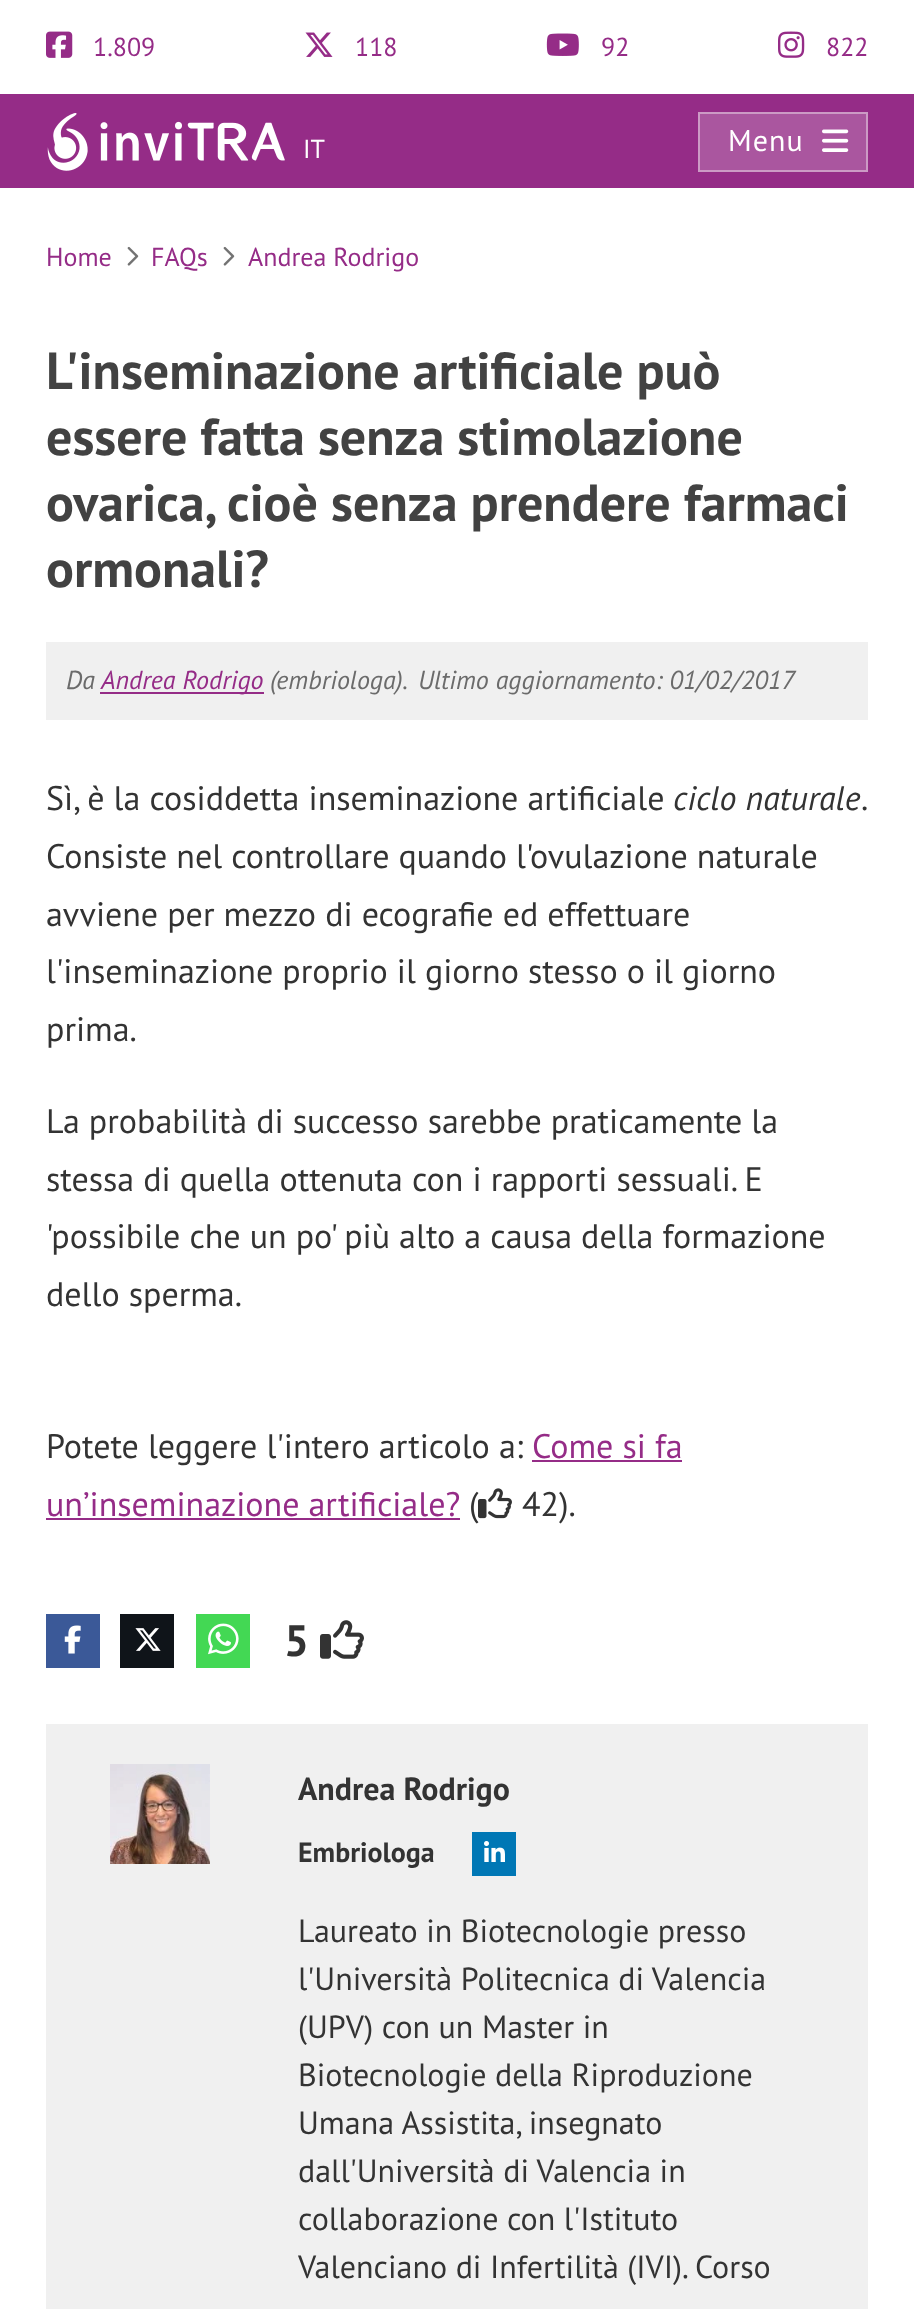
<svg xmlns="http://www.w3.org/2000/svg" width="914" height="2309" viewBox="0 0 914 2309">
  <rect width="100%" height="100%" fill="#fff"/>
  <image x="46" y="31" width="27" height="27" href="img/1.png"/>
  <image x="305" y="32" width="28" height="25" href="img/2.png"/>
  <image x="546" y="33" width="33" height="23" href="img/3.png"/>
  <image x="778" y="31" width="27" height="27" href="img/4.png"/>
  <path d="M0 94h914v94H0z" fill="#952c87"/>
  <image x="47" y="113" width="238" height="58" href="img/5.png"/>
  <path d="M700 114h166v56H700z" fill="#aa569f"/>
  <image x="822" y="129" width="27" height="23" href="img/6.png"/>
  <path d="M699 113h168v58H699z" fill="none" stroke="#cc9ac5" stroke-width="2"/>
  <image x="127" y="246" width="12" height="20" href="img/7.png"/>
  <image x="223" y="246" width="12" height="20" href="img/7.png"/>
  <path d="M46 642h822v78H46z" fill="#f0f0f0"/>
  <path d="M100 692h164v2H100z" fill="#952c87"/>
  <path d="M532 1460h150v2H532z" fill="#952c87"/>
  <path d="M46 1518h414v2H46z" fill="#952c87"/>
  <path d="M46 1614h54v54H46z" fill="#3b5998"/>
  <image x="64" y="1625" width="17" height="29" href="img/9.png"/>
  <path d="M120 1614h54v54H120z" fill="#0f1419"/>
  <image x="135" y="1628" width="26" height="23" href="img/10.png"/>
  <path d="M196 1614h54v54H196z" fill="#43d854"/>
  <image x="208" y="1623" width="31" height="32" href="img/11.png"/>
  <image x="320" y="1620" width="44" height="39" href="img/12.png"/>
  <path d="M46 1724h822v585H46z" fill="#f0f0f0"/>
  <image x="110" y="1764" width="100" height="100" href="img/13.png"/>
  <path d="M472 1832h44v44H472z" fill="#0077b5"/>
  <image x="484" y="1841" width="21" height="21" href="img/14.png"/>
  <g font-family="PT Sans" font-size="26" fill="#952c87">
    <text x="93" y="56">1.809</text>
    <text x="355" y="56">118</text>
    <text x="601" y="56">92</text>
    <text x="826" y="56">822</text>
  </g>
  <text x="303" y="158" font-family="PT Sans" font-size="26" fill="#fff">IT</text>
  <text x="728" y="151" font-family="PT Sans" font-size="30" letter-spacing="1" fill="#fff">Menu</text>
  <g font-family="PT Sans" font-size="26" fill="#952c87">
    <text x="46" y="266">Home</text>
    <text x="151" y="266">FAQs</text>
    <text x="248" y="266">Andrea Rodrigo</text>
  </g>
  <g font-family="PT Sans" font-size="52" font-weight="bold" fill="#424242">
    <text x="46" y="389">L'inseminazione artificiale può</text>
    <text x="46" y="455">essere fatta senza stimolazione</text>
    <text x="46" y="521">ovarica, cioè senza prendere farmaci</text>
    <text x="46" y="587">ormonali?</text>
  </g>
  <text x="66" y="689" font-family="PT Sans" font-size="26" font-style="italic" fill="#6b6b6b">Da</text>
  <text x="101" y="689" font-family="PT Sans" font-size="26" font-style="italic" fill="#952c87">Andrea Rodrigo</text>
  <g font-family="PT Sans" font-size="26" font-style="italic" fill="#6b6b6b">
    <text x="270" y="689">(embriologa).</text>
    <text x="418" y="689">Ultimo aggiornamento: 01/02/2017</text>
  </g>
  <text x="46" y="810" font-family="PT Sans" font-size="34" fill="#333">Sì, è la cosiddetta inseminazione artificiale</text>
  <text x="673" y="810" font-family="PT Sans" font-size="34" font-style="italic" fill="#333">ciclo naturale</text>
  <g font-family="PT Sans" font-size="34" fill="#333">
    <text x="861" y="810">.</text>
    <text x="46" y="868">Consiste nel controllare quando l'ovulazione naturale</text>
    <text x="46" y="926">avviene per mezzo di ecografie ed effettuare</text>
    <text x="46" y="983">l'inseminazione proprio il giorno stesso o il giorno</text>
    <text x="46" y="1041">prima.</text>
    <text x="46" y="1133">La probabilità di successo sarebbe praticamente la</text>
    <text x="46" y="1191">stessa di quella ottenuta con i rapporti sessuali. E</text>
    <text x="46" y="1248">'possibile che un po' più alto a causa della formazione</text>
    <text x="46" y="1306">dello sperma.</text>
    <text x="46" y="1458">Potete leggere l'intero articolo a:</text>
  </g>
  <g font-family="PT Sans" font-size="34" fill="#952c87">
    <text x="532" y="1458">Come si fa</text>
    <text x="46" y="1516">un’inseminazione artificiale?</text>
  </g>
  <text x="469" y="1516" font-family="PT Sans" font-size="34" fill="#333">(</text>
  <image x="478" y="1488" width="34" height="31" href="img/8.png"/>
  <text x="522" y="1516" font-family="PT Sans" font-size="34" fill="#333">42).</text>
  <text x="284" y="1656" font-family="PT Sans" font-size="44" font-weight="bold" fill="#333">5</text>
  <text x="298" y="1800" font-family="PT Sans" font-size="32" font-weight="bold" fill="#333">Andrea Rodrigo</text>
  <text x="298" y="1862" font-family="PT Sans" font-size="28" font-weight="bold" fill="#333">Embriologa</text>
  <g font-family="PT Sans" font-size="32" fill="#333">
    <text x="298" y="1942">Laureato in Biotecnologie presso</text>
    <text x="298" y="1990">l'Università Politecnica di Valencia</text>
    <text x="298" y="2038">(UPV) con un Master in</text>
    <text x="298" y="2086">Biotecnologie della Riproduzione</text>
    <text x="298" y="2134">Umana Assistita, insegnato</text>
    <text x="298" y="2182">dall'Università di Valencia in</text>
    <text x="298" y="2230">collaborazione con l'Istituto</text>
    <text x="298" y="2278">Valenciano di Infertilità (IVI). Corso</text>
  </g>
</svg>
